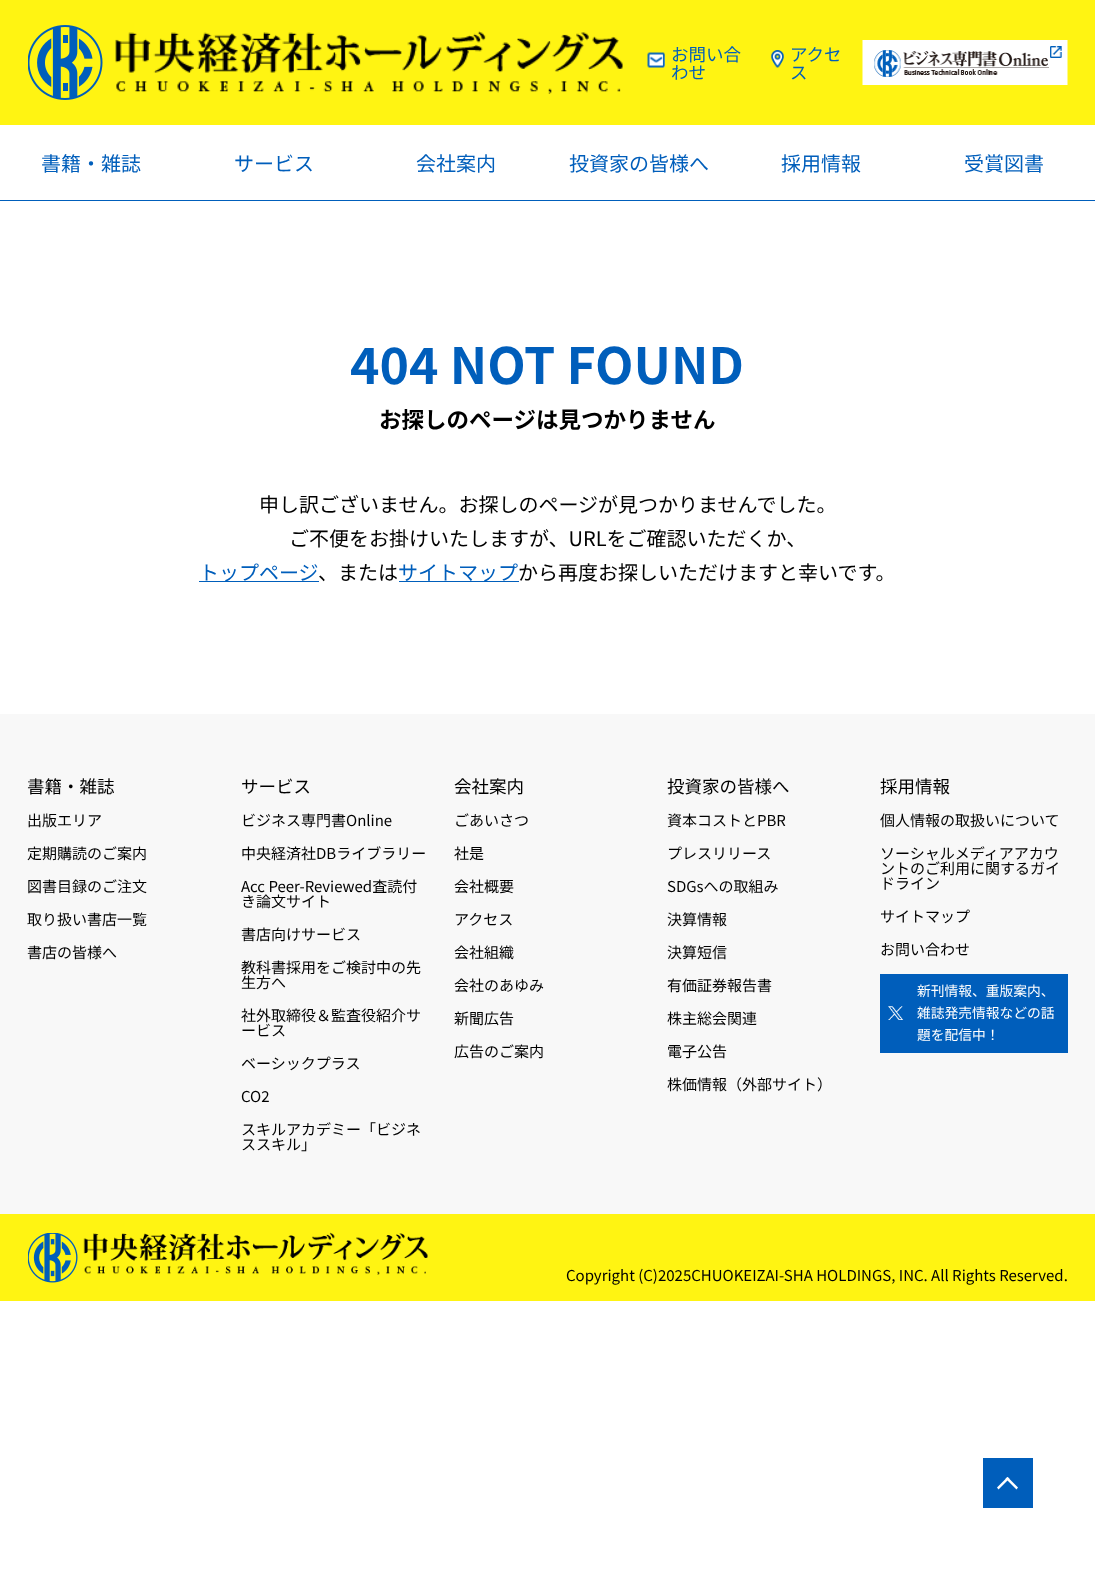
<svg xmlns="http://www.w3.org/2000/svg" width="1095" height="1570" viewBox="0 0 1095 1570">
  <rect width="100%" height="100%" fill="#fff"/>
  <path d="M0 200h1095v1H0z" fill="#005ebb"/>
  <path d="M0 0h1095v125H0z" fill="#fff412"/>
  <image x="28" y="25" width="75" height="75" href="img/1.png"/>
  <image x="115" y="31" width="508" height="63" href="img/2.png"/>
  <image x="647" y="52" width="18" height="16" href="img/3.png"/>
  <image x="771" y="50" width="13" height="18" href="img/4.png"/>
  <image x="862" y="40" width="206" height="45" href="img/5.png"/>
  <path d="M199 581h120v1H199z" fill="#005ebb"/>
  <path d="M399 581h120v1H399z" fill="#005ebb"/>
  <path d="M0 714h1095v500H0z" fill="#f8f8f8"/>
  <path d="M880 974h188v79H880z" fill="#005ebb"/>
  <image x="888" y="1006" width="16" height="14" href="img/6.png"/>
  <path d="M0 1214h1095v87H0z" fill="#fff412"/>
  <image x="28" y="1233" width="50" height="50" href="img/7.png"/>
  <image x="83" y="1232" width="345" height="43" href="img/8.png"/>
  <path d="M983 1458h50v50H983z" fill="#005ebb"/>
  <path d="M997 1487.5L1007.5 1477L1009.5 1478.5L998.5 1489.5Z" fill="#fff"/>
  <path d="M1005.5 1478.5L1007.5 1477L1018 1487.5L1016.5 1489.5Z" fill="#fff"/>
  <g font-family="Noto Sans JP" font-size="17.5" fill="#005ebb">
    <text x="671" y="61">お問い合</text>
    <text x="671" y="79">わせ</text>
    <text x="790" y="61">アクセ</text>
    <text x="790" y="79">ス</text>
  </g>
  <g font-family="Noto Sans JP" font-size="20" fill="#005ebb">
    <text x="41" y="171">書籍・雑誌</text>
    <text x="234" y="171">サービス</text>
    <text x="416" y="171">会社案内</text>
    <text x="569" y="171">投資家の皆様へ</text>
    <text x="781" y="171">採用情報</text>
    <text x="964" y="171">受賞図書</text>
  </g>
  <text x="350" y="384" font-family="Noto Sans JP" font-size="50" font-weight="bold" fill="#005ebb">404 NOT FOUND</text>
  <text x="379" y="428" font-family="Noto Sans JP" font-size="22.5" font-weight="bold" fill="#000">お探しのページは見つかりません</text>
  <g font-family="Noto Sans JP" font-size="20" fill="#000">
    <text x="259" y="512">申し訳ございません。お探しのページが見つかりませんでした。</text>
    <text x="289" y="546">ご不便をお掛けいたしますが、URLをご確認いただくか、</text>
  </g>
  <text x="199" y="580" font-family="Noto Sans JP" font-size="20" fill="#005ebb">トップページ</text>
  <text x="318" y="580" font-family="Noto Sans JP" font-size="20" fill="#000">、または</text>
  <text x="398" y="580" font-family="Noto Sans JP" font-size="20" fill="#005ebb">サイトマップ</text>
  <text x="518" y="580" font-family="Noto Sans JP" font-size="20" fill="#000">から再度お探しいただけますと幸いです。</text>
  <text x="27" y="793" font-family="Noto Sans JP" font-size="17.5" fill="#000">書籍・雑誌</text>
  <g font-family="Noto Sans JP" font-size="15" fill="#000">
    <text x="27" y="826">出版エリア</text>
    <text x="27" y="859">定期購読のご案内</text>
    <text x="27" y="892">図書目録のご注文</text>
    <text x="27" y="925">取り扱い書店一覧</text>
    <text x="27" y="958">書店の皆様へ</text>
  </g>
  <text x="241" y="793" font-family="Noto Sans JP" font-size="17.5" fill="#000">サービス</text>
  <g font-family="Noto Sans JP" font-size="15" fill="#000">
    <text x="241" y="826">ビジネス専門書Online</text>
    <text x="241" y="859">中央経済社DBライブラリー</text>
    <text x="241" y="892">Acc Peer-Reviewed査読付</text>
    <text x="241" y="907">き論文サイト</text>
    <text x="241" y="940">書店向けサービス</text>
    <text x="241" y="973">教科書採用をご検討中の先</text>
    <text x="241" y="988">生方へ</text>
    <text x="241" y="1021">社外取締役＆監査役紹介サ</text>
    <text x="241" y="1036">ービス</text>
    <text x="241" y="1069">ベーシックプラス</text>
    <text x="241" y="1102">CO2</text>
    <text x="241" y="1135">スキルアカデミー「ビジネ</text>
    <text x="241" y="1150">ススキル」</text>
  </g>
  <text x="454" y="793" font-family="Noto Sans JP" font-size="17.5" fill="#000">会社案内</text>
  <g font-family="Noto Sans JP" font-size="15" fill="#000">
    <text x="454" y="826">ごあいさつ</text>
    <text x="454" y="859">社是</text>
    <text x="454" y="892">会社概要</text>
    <text x="454" y="925">アクセス</text>
    <text x="454" y="958">会社組織</text>
    <text x="454" y="991">会社のあゆみ</text>
    <text x="454" y="1024">新聞広告</text>
    <text x="454" y="1057">広告のご案内</text>
  </g>
  <text x="667" y="793" font-family="Noto Sans JP" font-size="17.5" fill="#000">投資家の皆様へ</text>
  <g font-family="Noto Sans JP" font-size="15" fill="#000">
    <text x="667" y="826">資本コストとPBR</text>
    <text x="667" y="859">プレスリリース</text>
    <text x="667" y="892">SDGsへの取組み</text>
    <text x="667" y="925">決算情報</text>
    <text x="667" y="958">決算短信</text>
    <text x="667" y="991">有価証券報告書</text>
    <text x="667" y="1024">株主総会関連</text>
    <text x="667" y="1057">電子公告</text>
    <text x="667" y="1090">株価情報（外部サイト）</text>
  </g>
  <text x="880" y="793" font-family="Noto Sans JP" font-size="17.5" fill="#000">採用情報</text>
  <g font-family="Noto Sans JP" font-size="15" fill="#000">
    <text x="880" y="826">個人情報の取扱いについて</text>
    <text x="880" y="859">ソーシャルメディアアカウ</text>
    <text x="880" y="874">ントのご利用に関するガイ</text>
    <text x="880" y="889">ドライン</text>
    <text x="880" y="922">サイトマップ</text>
    <text x="880" y="955">お問い合わせ</text>
  </g>
  <g font-family="Noto Sans JP" font-size="13.75" fill="#fff">
    <text x="917" y="996">新刊情報、重版案内、</text>
    <text x="917" y="1018">雑誌発売情報などの話</text>
    <text x="917" y="1040">題を配信中！</text>
  </g>
  <text x="566" y="1281" font-family="Noto Sans JP" font-size="15" fill="#000">Copyright (C)2025CHUOKEIZAI-SHA HOLDINGS, INC. All Rights Reserved.</text>
</svg>
